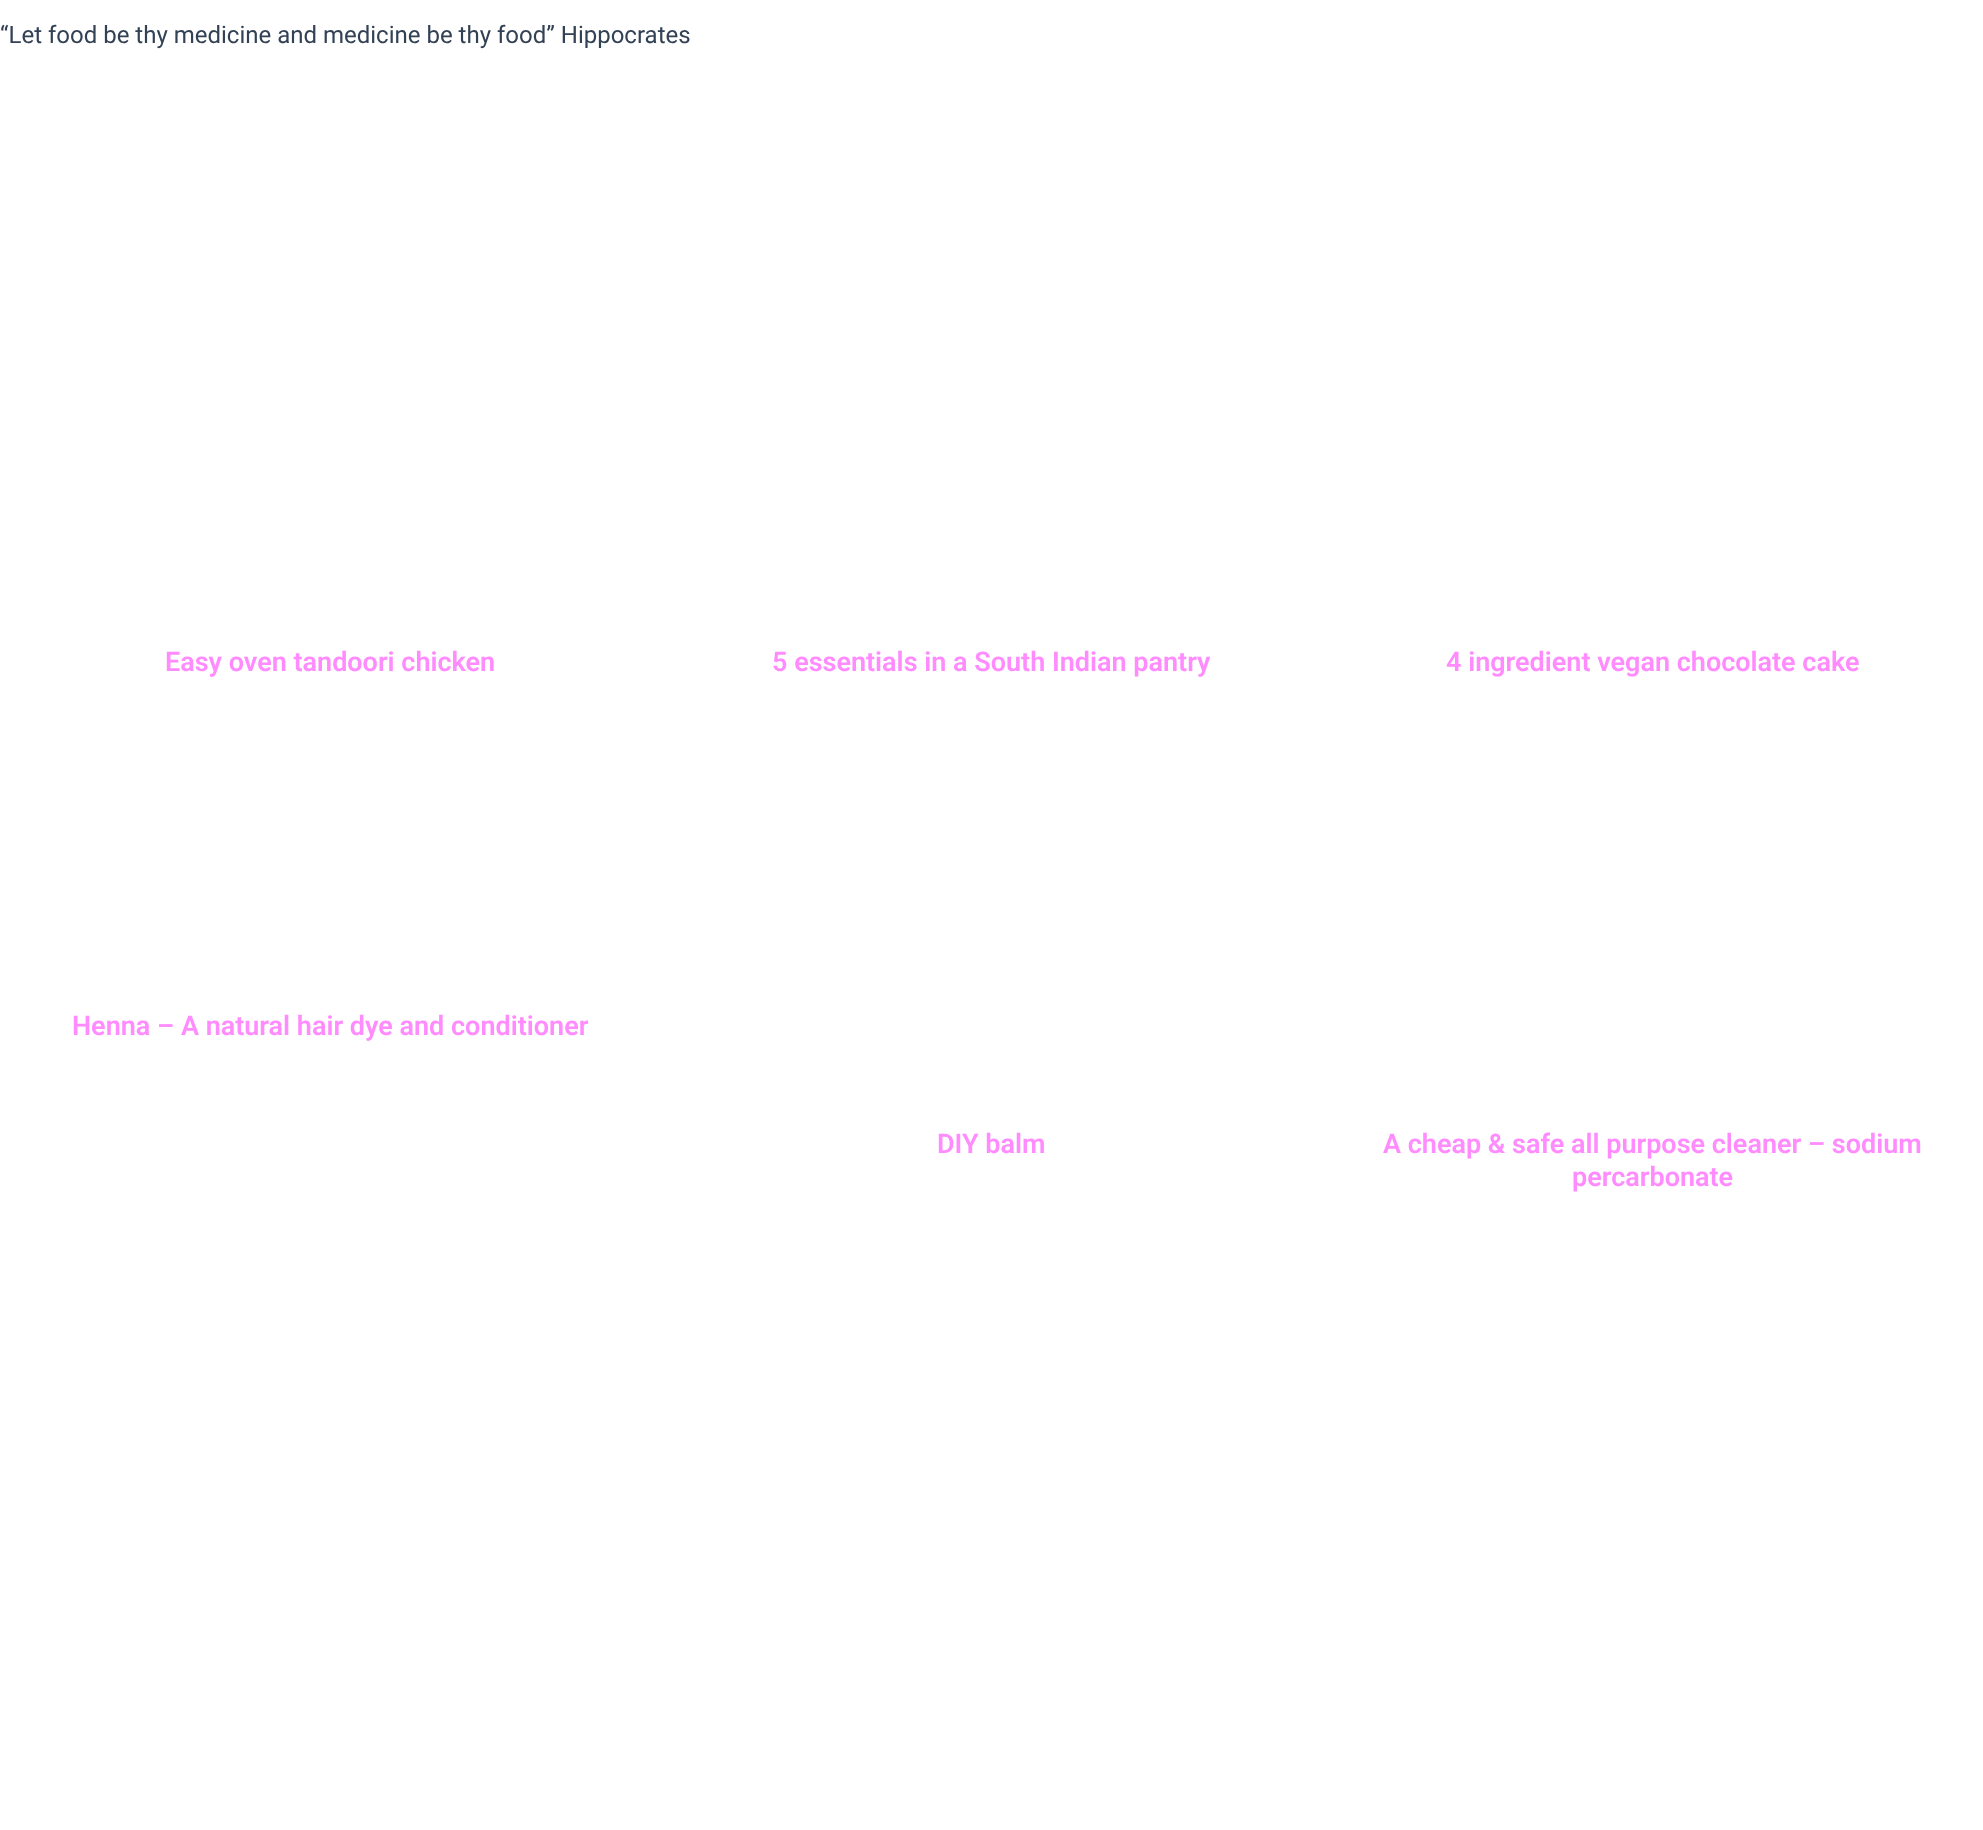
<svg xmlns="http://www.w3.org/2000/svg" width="1983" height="1830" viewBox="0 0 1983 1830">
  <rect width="100%" height="100%" fill="#fff"/>
  <text x="0" y="43" font-family="Roboto" font-size="24" fill="#334155">“Let food be thy medicine and medicine be thy food” Hippocrates</text>
  <g font-family="Roboto" font-size="27" font-weight="600" fill="#ff8bfe">
    <text x="165" y="671">Easy oven tandoori chicken</text>
    <text x="772" y="671">5 essentials in a South Indian pantry</text>
    <text x="1446" y="671">4 ingredient vegan chocolate cake</text>
    <text x="72" y="1035">Henna – A natural hair dye and conditioner</text>
    <text x="937" y="1153">DIY balm</text>
    <text x="1383" y="1153">A cheap &amp; safe all purpose cleaner – sodium</text>
    <text x="1572" y="1186">percarbonate</text>
  </g>
</svg>
